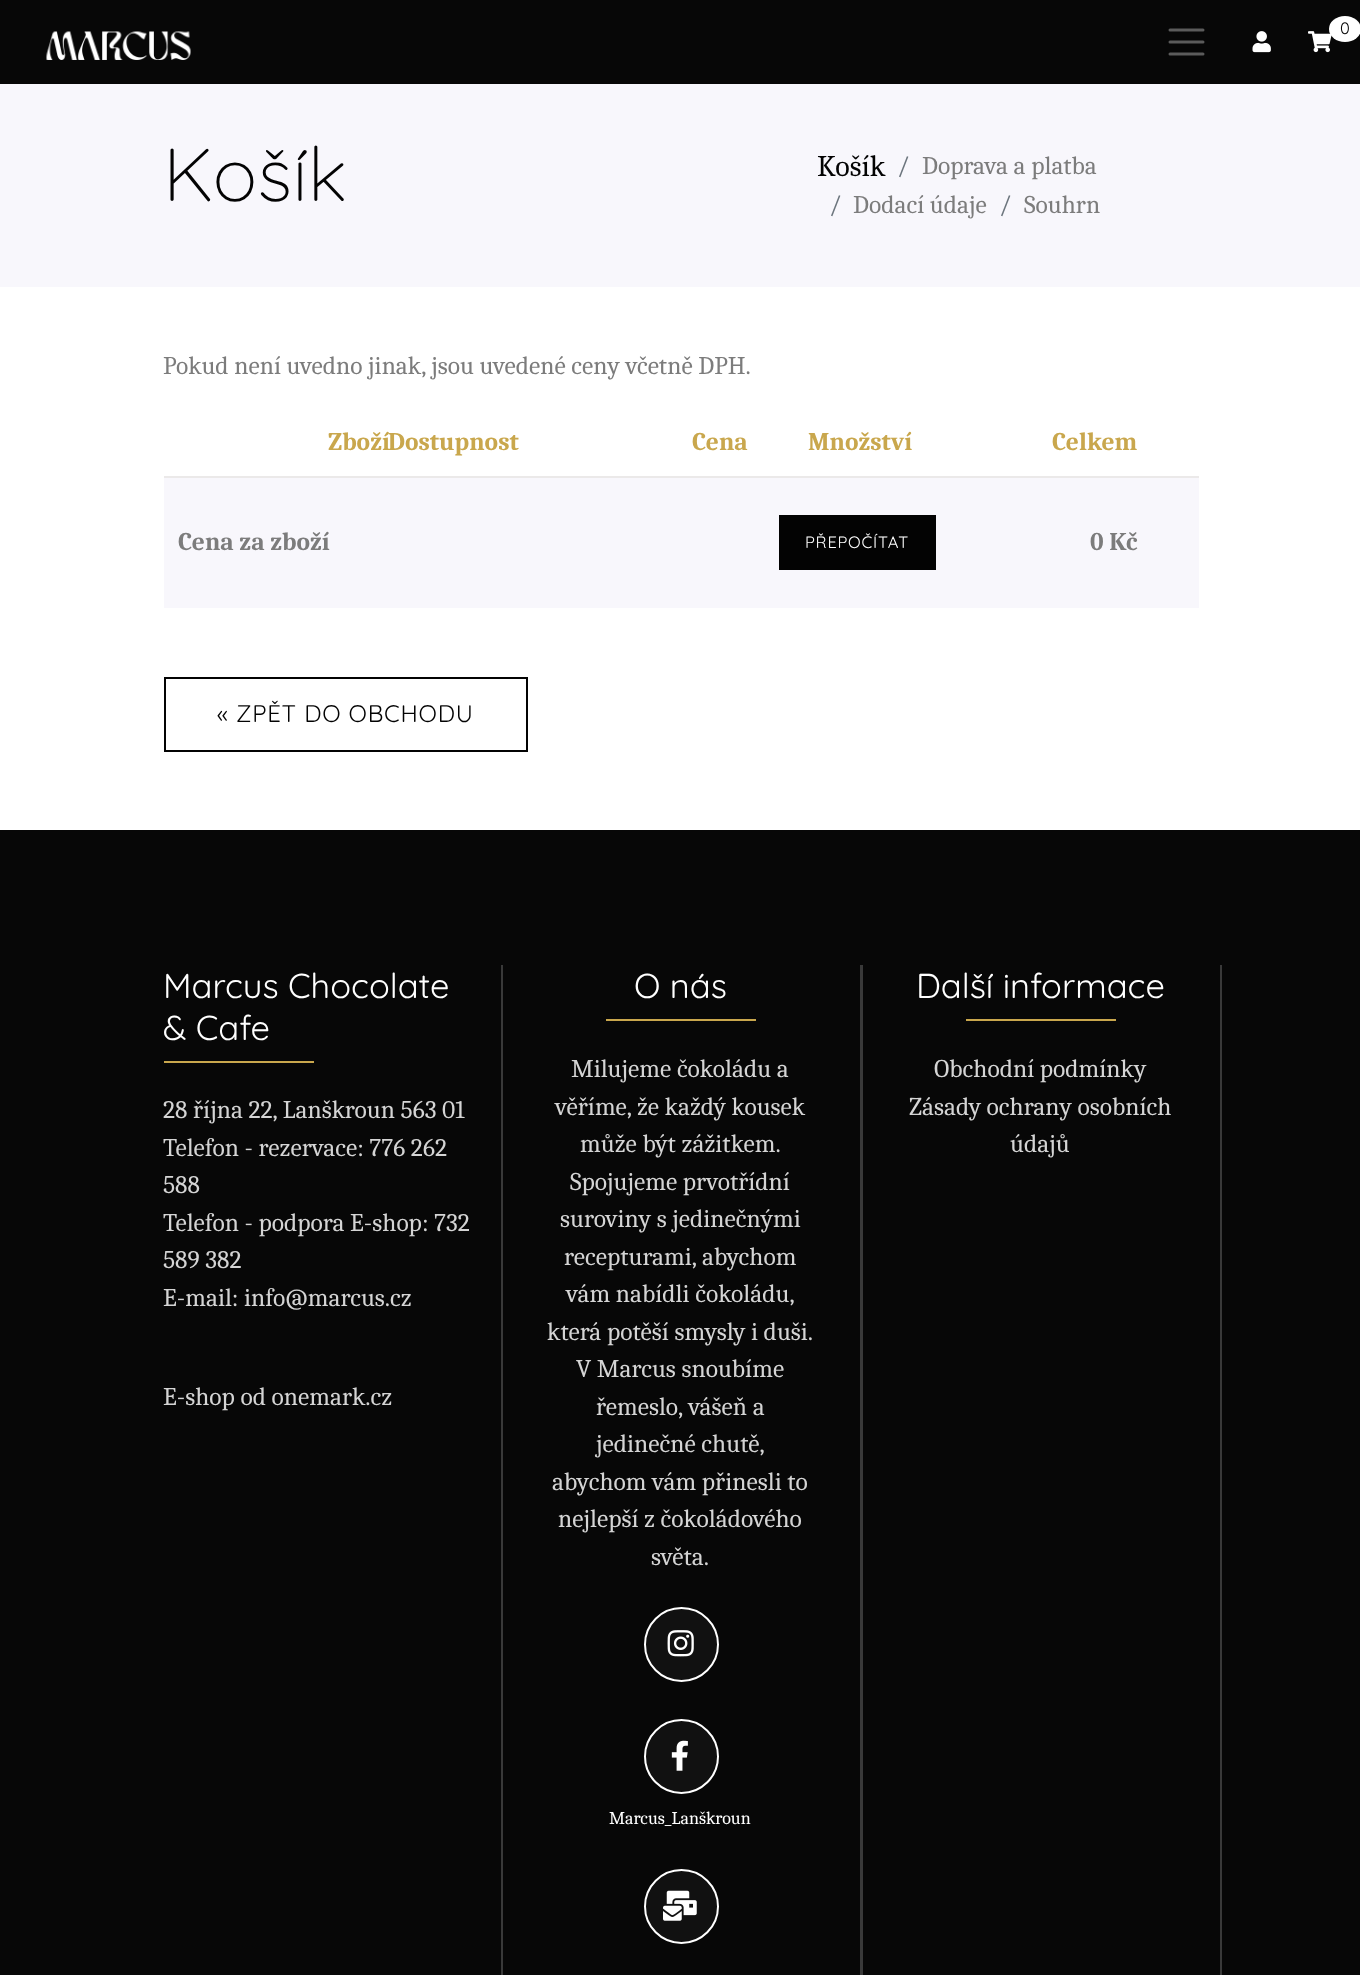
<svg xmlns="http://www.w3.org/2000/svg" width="1360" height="1975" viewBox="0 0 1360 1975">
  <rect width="100%" height="100%" fill="#fff"/>
  <path d="M0 0h1360v84H0z" fill="#070707"/>
  <image x="46" y="31" width="145" height="29" href="img/1.png"/>
  <path d="M1170 30H1203M1170 42H1203M1170 54H1203" fill="none" stroke="#5b5b5b" stroke-width="3" stroke-linecap="round"/>
  <image x="1252" y="31" width="19" height="22" href="img/2.png"/>
  <image x="1308" y="31" width="24" height="22" href="img/3.png"/>
  <ellipse cx="1345" cy="29" rx="16" ry="13" fill="#fff"/>
  <path d="M0 84h1360v203H0z" fill="#f8f7fc"/>
  <path d="M164 476h1035v2H164z" fill="#ebe9e9"/>
  <path d="M164 478h1035v130H164z" fill="#f8f7fc"/>
  <path d="M779 515h157v55H779z" fill="#030303"/>
  <path d="M165 678h362v73H165z" fill="none" stroke="#030303" stroke-width="2"/>
  <path d="M0 830h1360v1145H0z" fill="#070707"/>
  <path d="M164 1061h150v2H164z" fill="#c9a74d"/>
  <path d="M860 965h3v1010H860z" fill="#393939"/>
  <path d="M501 965h2v1010H501z" fill="#393939"/>
  <path d="M606 1019h150v2H606z" fill="#c9a74d"/>
  <circle cx="681.5" cy="1644.5" r="36.5" fill="#111" stroke="#fff" stroke-width="2"/>
  <image x="667" y="1630" width="27" height="27" href="img/4.png"/>
  <circle cx="681.5" cy="1756.5" r="36.5" fill="#111" stroke="#fff" stroke-width="2"/>
  <image x="671" y="1740" width="17" height="31" href="img/5.png"/>
  <circle cx="681.5" cy="1906.5" r="36.5" fill="#111" stroke="#fff" stroke-width="2"/>
  <image x="663" y="1890" width="34" height="31" href="img/6.png"/>
  <path d="M1220 965h2v1010H1220z" fill="#393939"/>
  <path d="M966 1019h150v2H966z" fill="#c9a74d"/>
  <text x="1340" y="34" font-family="Quicksand" font-size="16.5" fill="#030303">0</text>
  <text x="163" y="201" font-family="Quicksand" font-size="75" font-weight="300" fill="#030303">Košík</text>
  <text x="817" y="176" font-family="Caladea" font-size="30" fill="#030303">Košík</text>
  <text x="897" y="174" font-family="Caladea" font-size="25.5" fill="#6c757d">/</text>
  <text x="922" y="174" font-family="Caladea" font-size="25.5" fill="#7c7c7c">Doprava a platba</text>
  <text x="829" y="213" font-family="Caladea" font-size="25.5" fill="#6c757d">/</text>
  <text x="853" y="213" font-family="Caladea" font-size="25.5" fill="#7c7c7c">Dodací údaje</text>
  <text x="999" y="213" font-family="Caladea" font-size="25.5" fill="#6c757d">/</text>
  <g font-family="Caladea" font-size="25.5" fill="#7c7c7c">
    <text x="1024" y="213">Souhrn</text>
    <text x="163" y="374">Pokud není uvedno jinak, jsou uvedené ceny včetně DPH.</text>
  </g>
  <g font-family="Caladea" font-size="25.5" font-weight="bold" fill="#c9a74d">
    <text x="328" y="450">Zboží</text>
    <text x="388" y="450">Dostupnost</text>
    <text x="692" y="450">Cena</text>
    <text x="808" y="450">Množství</text>
    <text x="1052" y="450">Celkem</text>
  </g>
  <text x="178" y="550" font-family="Caladea" font-size="25.5" font-weight="bold" fill="#7c7c7c">Cena za zboží</text>
  <text x="805" y="548" font-family="Quicksand" font-size="16.5" letter-spacing="0.75" fill="#fff">PŘEPOČÍTAT</text>
  <text x="1090" y="550" font-family="Caladea" font-size="25.5" font-weight="bold" fill="#7c7c7c">0 Kč</text>
  <text x="217" y="722" font-family="Quicksand" font-size="24" letter-spacing="0.75" fill="#030303">« ZPĚT DO OBCHODU</text>
  <g font-family="Quicksand" font-size="34.5" fill="#fff">
    <text x="163" y="998">Marcus Chocolate</text>
    <text x="163" y="1040">&amp; Cafe</text>
  </g>
  <g font-family="Caladea" font-size="25.5" fill="#d4d4d4">
    <text x="163" y="1118">28 října 22, Lanškroun 563 01</text>
    <text x="163" y="1156">Telefon - rezervace: 776 262</text>
    <text x="163" y="1193">588</text>
    <text x="163" y="1231">Telefon - podpora E-shop: 732</text>
    <text x="163" y="1268">589 382</text>
    <text x="163" y="1306">E-mail: info@marcus.cz</text>
    <text x="163" y="1405">E-shop od onemark.cz</text>
  </g>
  <text x="634" y="998" font-family="Quicksand" font-size="34.5" fill="#fff">O nás</text>
  <g font-family="Caladea" font-size="25.5" fill="#d4d4d4">
    <text x="571" y="1077">Milujeme čokoládu a</text>
    <text x="555" y="1115">věříme, že každý kousek</text>
    <text x="580" y="1152">může být zážitkem.</text>
    <text x="570" y="1190">Spojujeme prvotřídní</text>
    <text x="560" y="1227">suroviny s jedinečnými</text>
    <text x="564" y="1265">recepturami, abychom</text>
    <text x="566" y="1302">vám nabídli čokoládu,</text>
    <text x="547" y="1340">která potěší smysly i duši.</text>
    <text x="576" y="1377">V Marcus snoubíme</text>
    <text x="596" y="1415">řemeslo, vášeň a</text>
    <text x="596" y="1452">jedinečné chutě,</text>
    <text x="552" y="1490">abychom vám přinesli to</text>
    <text x="558" y="1527">nejlepší z čokoládového</text>
    <text x="651" y="1565">světa.</text>
  </g>
  <text x="609" y="1824" font-family="Caladea" font-size="18" fill="#fff">Marcus_Lanškroun</text>
  <text x="916" y="998" font-family="Quicksand" font-size="34.5" fill="#fff">Další informace</text>
  <g font-family="Caladea" font-size="25.5" fill="#d4d4d4">
    <text x="934" y="1077">Obchodní podmínky</text>
    <text x="909" y="1115">Zásady ochrany osobních</text>
    <text x="1010" y="1152">údajů</text>
  </g>
</svg>
